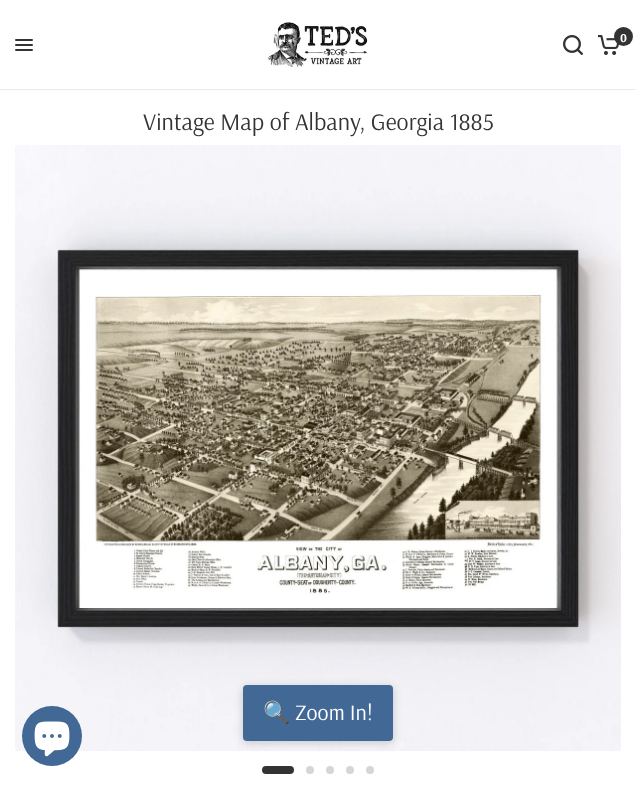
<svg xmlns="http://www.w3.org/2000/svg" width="636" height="787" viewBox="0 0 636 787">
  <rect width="100%" height="100%" fill="#fff"/>
  <image x="267" y="22" width="101" height="45" href="img/1.png"/>
  <image x="563" y="35" width="20" height="20" href="img/2.png"/>
  <image x="597" y="35" width="22" height="20" href="img/3.png"/>
  <circle cx="623.5" cy="36.5" r="9.5" fill="#333"/>
  <rect x="15" y="39" width="18" height="2" rx="1" fill="#333"/>
  <rect x="15" y="44" width="18" height="2" rx="1" fill="#333"/>
  <rect x="15" y="49" width="18" height="2" rx="1" fill="#333"/>
  <path d="M0 89h636v1H0z" fill="#ebebed"/>
  <image x="15" y="145" width="606" height="606" href="img/4.png"/>
  <rect x="243" y="687" width="150" height="56" rx="4" fill="#0000002e" filter="blur(4px)"/>
  <rect x="243" y="685" width="150" height="56" rx="4" fill="#426895"/>
  <rect x="262" y="766" width="32" height="8" rx="4" fill="#333"/>
  <circle cx="310" cy="770" r="4" fill="#d6d6d6"/>
  <circle cx="330" cy="770" r="4" fill="#d6d6d6"/>
  <circle cx="350" cy="770" r="4" fill="#d6d6d6"/>
  <circle cx="370" cy="770" r="4" fill="#d6d6d6"/>
  <circle cx="52" cy="736" r="30" fill="#426895"/>
  <image x="34" y="721" width="36" height="36" href="img/5.png"/>
  <text x="620" y="42" font-family="Arsenal" font-size="12" font-weight="bold" fill="#fff">0</text>
  <text x="143" y="130" font-family="Arsenal" font-size="24" fill="#333">Vintage Map of Albany, Georgia 1885</text>
  <text x="263" y="720" font-family="Noto Color Emoji" font-size="22" fill="#fff">🔍</text>
  <text x="295" y="720" font-family="Arsenal" font-size="22" fill="#fff">Zoom In!</text>
</svg>
